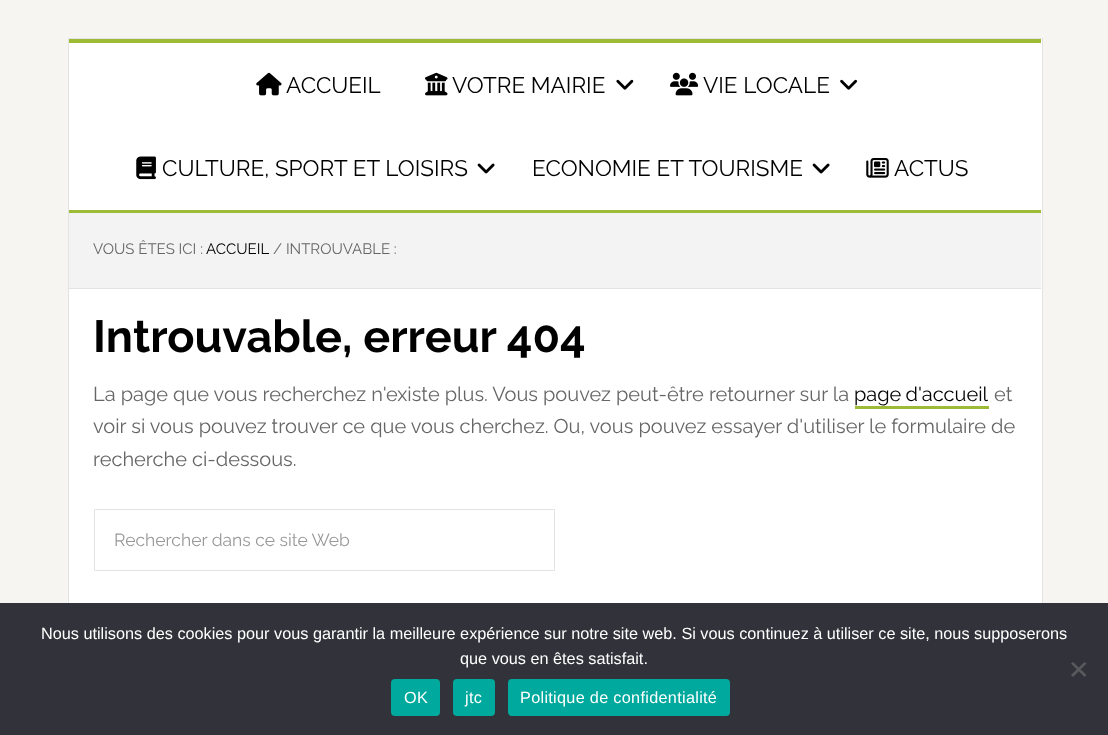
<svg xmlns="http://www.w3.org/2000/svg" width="1108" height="735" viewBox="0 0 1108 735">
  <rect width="100%" height="100%" fill="#f6f5f2"/>
  <path d="M69 39h973v564H69z" fill="#fff"/>
  <path d="M68.5 38.5h974v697H68.5z" fill="none" stroke="#e3e3e3"/>
  <path d="M69 39h972v4H69z" fill="#9ebb36"/>
  <path d="M69 210h972v3H69z" fill="#9ebb36"/>
  <image x="256" y="72" width="26" height="24" href="img/1.png"/>
  <image x="425" y="72" width="23" height="24" href="img/2.png"/>
  <image x="616" y="79" width="18" height="11" href="img/3.png"/>
  <image x="670" y="72" width="29" height="24" href="img/4.png"/>
  <image x="840" y="79" width="17" height="11" href="img/5.png"/>
  <image x="136" y="156" width="20" height="24" href="img/6.png"/>
  <image x="477" y="163" width="18" height="11" href="img/7.png"/>
  <image x="812" y="163" width="18" height="11" href="img/7.png"/>
  <image x="866" y="158" width="23" height="20" href="img/8.png"/>
  <path d="M69 213h972v75H69z" fill="#f3f3f3"/>
  <path d="M69 288h972v1H69z" fill="#e3e3e3"/>
  <path d="M855 406h134v3H855z" fill="#9ebb36"/>
  <path d="M94.5 509.5h460v61H94.5z" fill="none" stroke="#e3e3e3"/>
  <path d="M0 603h1108v132H0z" fill="#32323a"/>
  <path d="M1084.5 662L1086.5 663.5L1073 677L1071 675Z" fill="#59595d"/>
  <path d="M1071 663.5L1073 662L1086.5 675L1084.5 677Z" fill="#59595d"/>
  <rect x="391" y="679" width="49" height="37" rx="4" fill="#00a99d"/>
  <rect x="453" y="679" width="42" height="37" rx="4" fill="#00a99d"/>
  <rect x="508" y="679" width="222" height="37" rx="4" fill="#00a99d"/>
  <g font-family="Raleway" font-size="22.5" fill="#000">
    <text x="286" y="93">ACCUEIL</text>
    <text x="452" y="93">VOTRE MAIRIE</text>
    <text x="703" y="93">VIE LOCALE</text>
    <text x="162" y="176">CULTURE, SPORT ET LOISIRS</text>
    <text x="532" y="176">ECONOMIE ET TOURISME</text>
    <text x="894" y="176">ACTUS</text>
  </g>
  <text x="93" y="254" font-family="Raleway" font-size="15" fill="#666">VOUS ÊTES ICI :</text>
  <text x="206" y="254" font-family="Raleway" font-size="15" fill="#000">ACCUEIL</text>
  <text x="273" y="254" font-family="Raleway" font-size="15" fill="#666">/ INTROUVABLE :</text>
  <text x="93" y="352" font-family="Raleway" font-size="45" font-weight="bold" fill="#000">Introuvable, erreur 404</text>
  <text x="93" y="401" font-family="Raleway" font-size="20" fill="#666">La page que vous recherchez n'existe plus. Vous pouvez peut-être retourner sur la</text>
  <text x="854" y="401" word-spacing="-1" font-family="Raleway" font-size="20" fill="#000">page d'accueil</text>
  <g font-family="Raleway" font-size="20" fill="#666">
    <text x="994" y="401">et</text>
    <text x="93" y="433">voir si vous pouvez trouver ce que vous cherchez. Ou, vous pouvez essayer d'utiliser le formulaire de</text>
    <text x="93" y="466">recherche ci-dessous.</text>
  </g>
  <text x="114" y="546" font-family="Raleway" font-size="17.5" fill="#999">Rechercher dans ce site Web</text>
  <g font-family="Liberation Sans" font-size="16.25" fill="#fff">
    <text x="41" y="639">Nous utilisons des cookies pour vous garantir la meilleure expérience sur notre site web. Si vous continuez à utiliser ce site, nous supposerons</text>
    <text x="460" y="664">que vous en êtes satisfait.</text>
  </g>
  <g font-family="Liberation Sans" font-size="16.25" letter-spacing="0.3" fill="#fff">
    <text x="404" y="703">OK</text>
    <text x="465" y="703">jtc</text>
    <text x="520" y="703">Politique de confidentialité</text>
  </g>
</svg>
